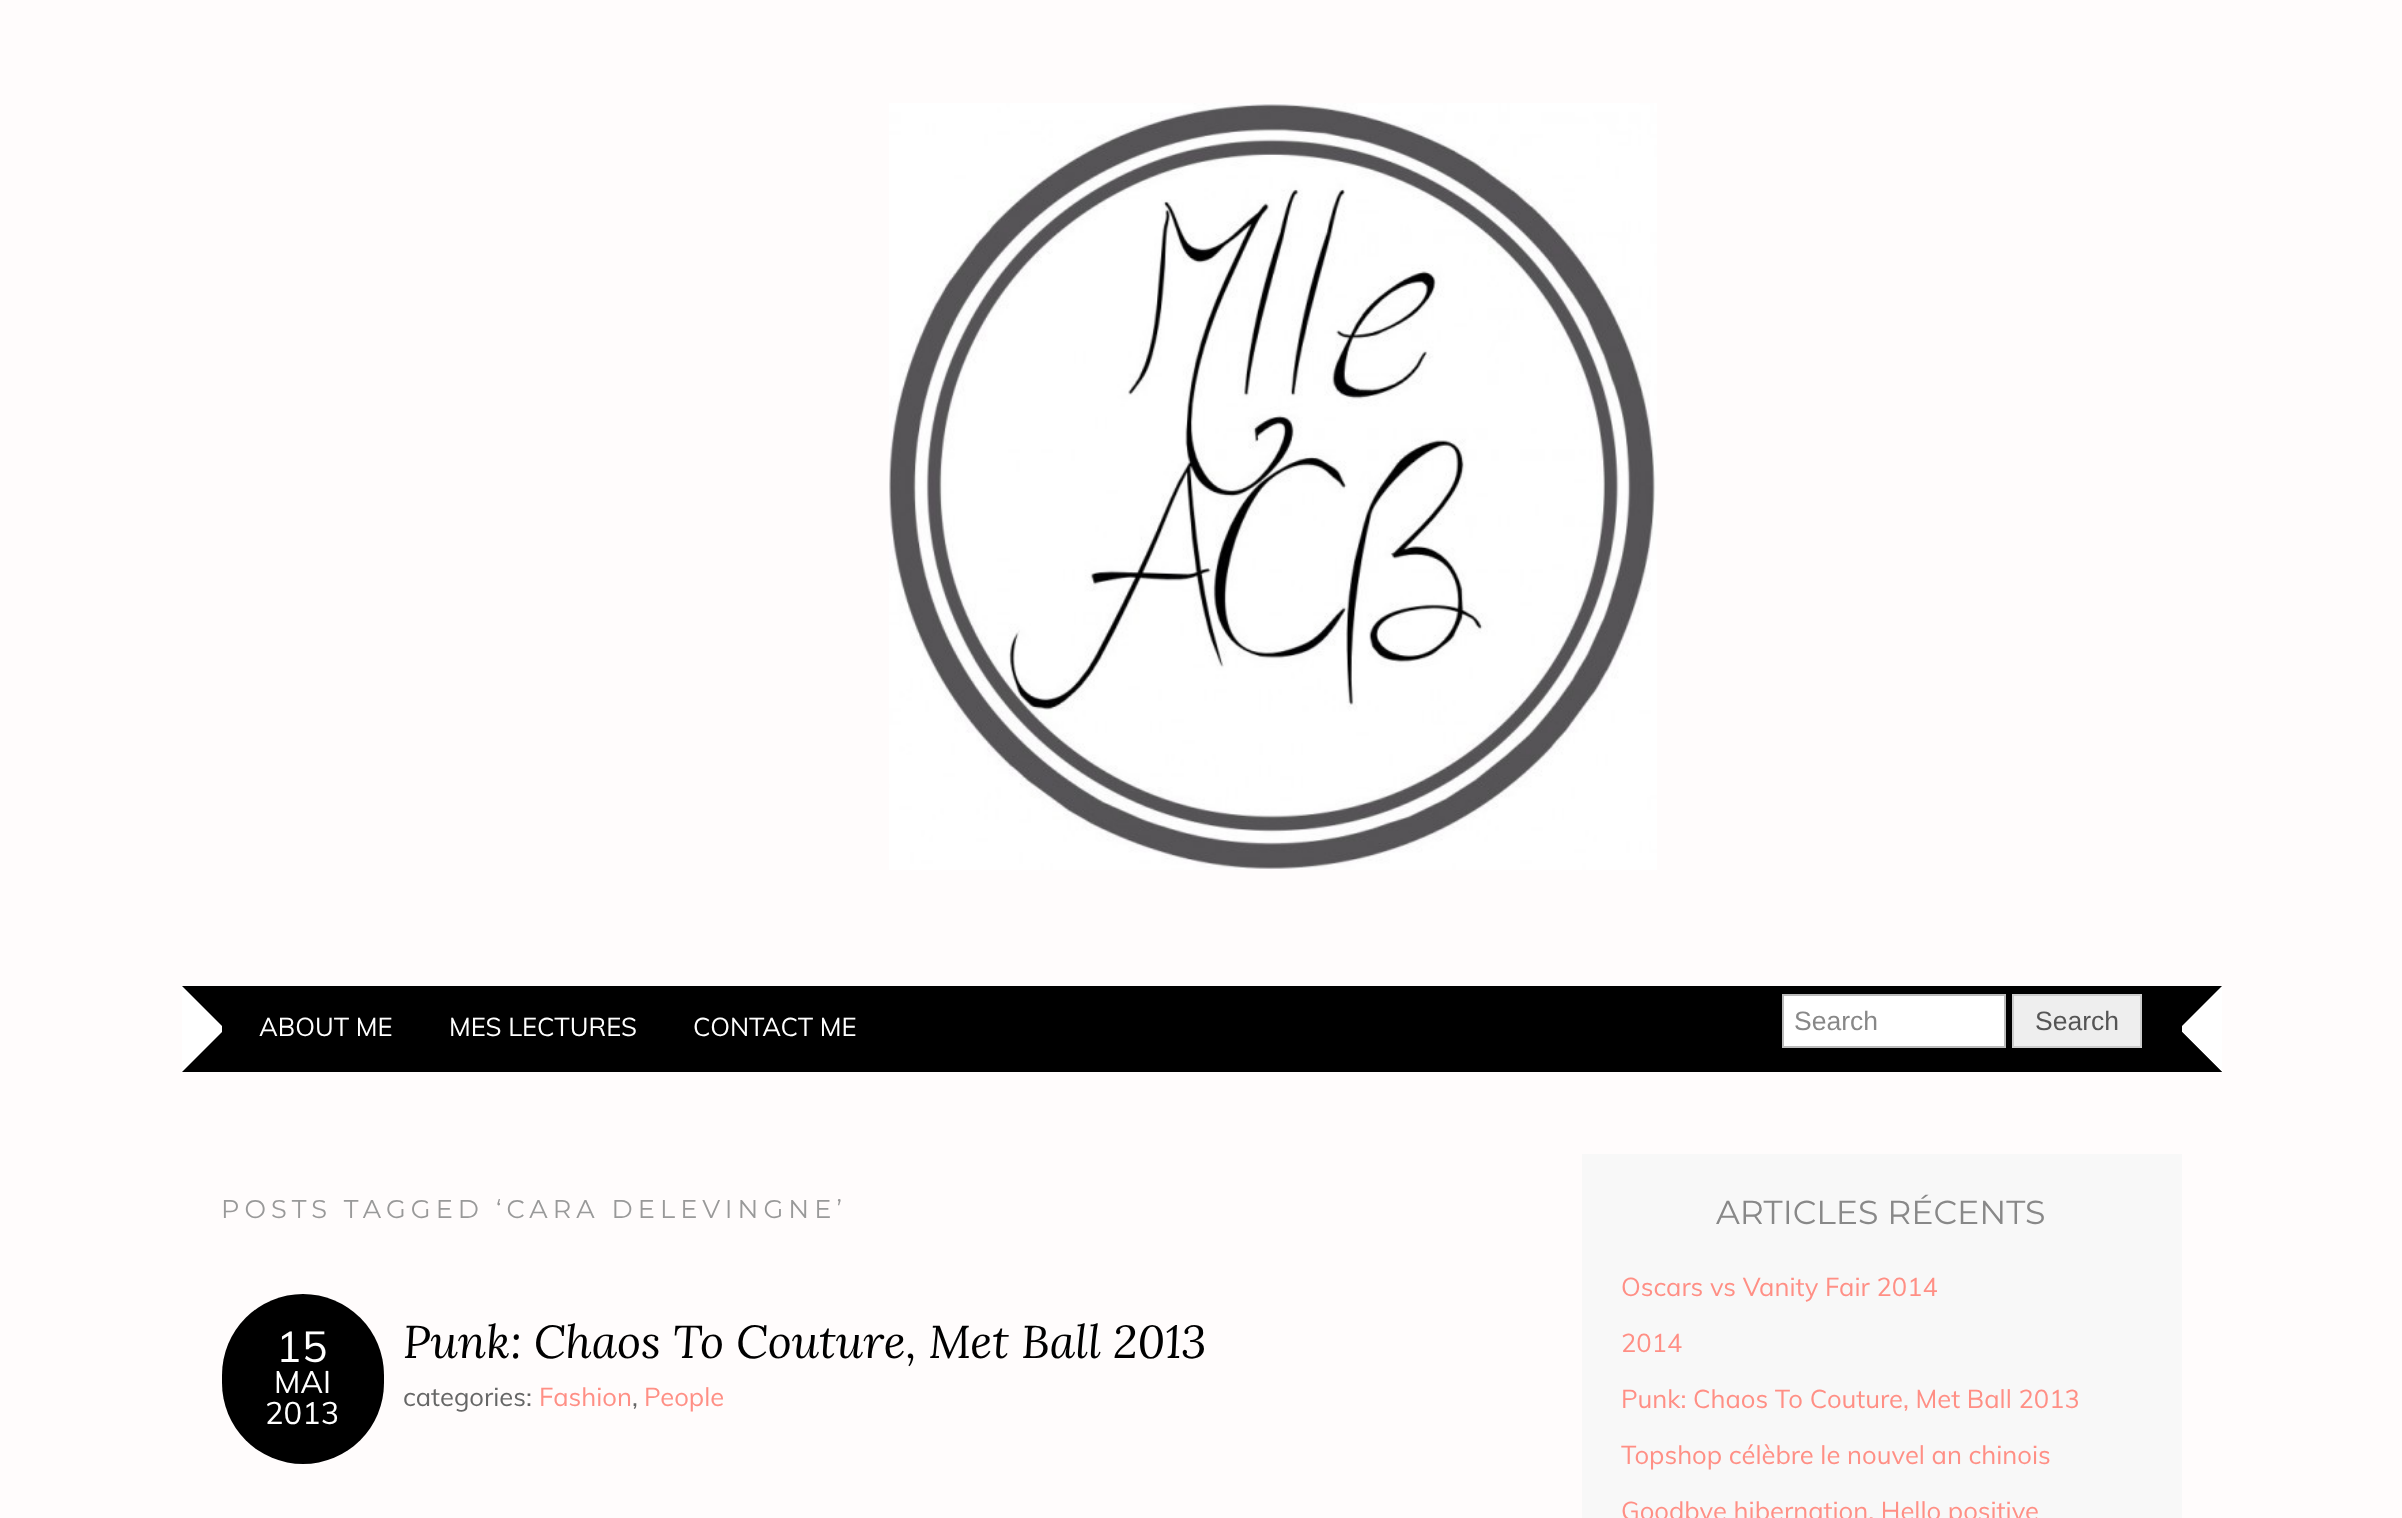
<svg xmlns="http://www.w3.org/2000/svg" width="2402" height="1518" viewBox="0 0 2402 1518">
  <rect width="100%" height="100%" fill="#fffcfc"/>
  <image x="889" y="103" width="768" height="767" href="img/1.png"/>
  <path d="M182 986h2040v86H182z" fill="#000"/>
  <path d="M182 1072V986L222 1026V1032Z" fill="#fff"/>
  <path d="M1783 995h222v52H1783z" fill="#fff" stroke="#bbb" stroke-width="2"/>
  <path d="M2013 995h128v52H2013z" fill="#eee" stroke="#ccc" stroke-width="2"/>
  <path d="M2222 986V1072L2182 1032V1026Z" fill="#fff"/>
  <path d="M2222 1072H2148L2182 1032Z" fill="#000"/>
  <rect x="222" y="1294" width="162" height="170" rx="81" fill="#000"/>
  <path d="M1582 1154h600v364H1582z" fill="#f8f8f8"/>
  <g font-family="Muli" font-size="25.6" fill="#fff">
    <text x="259" y="1036">ABOUT ME</text>
    <text x="449" y="1036">MES LECTURES</text>
    <text x="693" y="1036">CONTACT ME</text>
  </g>
  <text x="1794" y="1030" font-family="Liberation Sans" font-size="26.5" fill="#888">Search</text>
  <text x="2035" y="1030" font-family="Liberation Sans" font-size="26.5" fill="#555">Search</text>
  <text x="221" y="1218" font-family="Montserrat" font-size="25.6" letter-spacing="5.1" fill="#999">POSTS TAGGED ‘CARA DELEVINGNE’</text>
  <text x="276" y="1362" font-family="Muli" font-size="43" fill="#fff">15</text>
  <g font-family="Muli" font-size="31" fill="#fff">
    <text x="274" y="1393">MAI</text>
    <text x="265" y="1424">2013</text>
  </g>
  <text x="403" y="1358" font-family="Lora" font-size="46.1" font-style="italic" fill="#000">Punk: Chaos To Couture, Met Ball 2013</text>
  <text x="403" y="1406" font-family="Muli" font-size="25.6" fill="#666">categories:</text>
  <text x="539" y="1406" font-family="Muli" font-size="25.6" fill="#ff8f85">Fashion</text>
  <text x="632" y="1406" font-family="Muli" font-size="25.6" fill="#666">,</text>
  <text x="644" y="1406" font-family="Muli" font-size="25.6" fill="#ff8f85">People</text>
  <text x="1716" y="1224" font-family="Montserrat" font-size="33.25" fill="#888">ARTICLES RÉCENTS</text>
  <g font-family="Muli" font-size="25.6" fill="#ff8f85">
    <text x="1621" y="1296">Oscars vs Vanity Fair 2014</text>
    <text x="1621" y="1352">2014</text>
    <text x="1621" y="1408">Punk: Chaos To Couture, Met Ball 2013</text>
    <text x="1621" y="1464">Topshop célèbre le nouvel an chinois</text>
    <text x="1621" y="1520">Goodbye hibernation, Hello positive</text>
  </g>
</svg>
